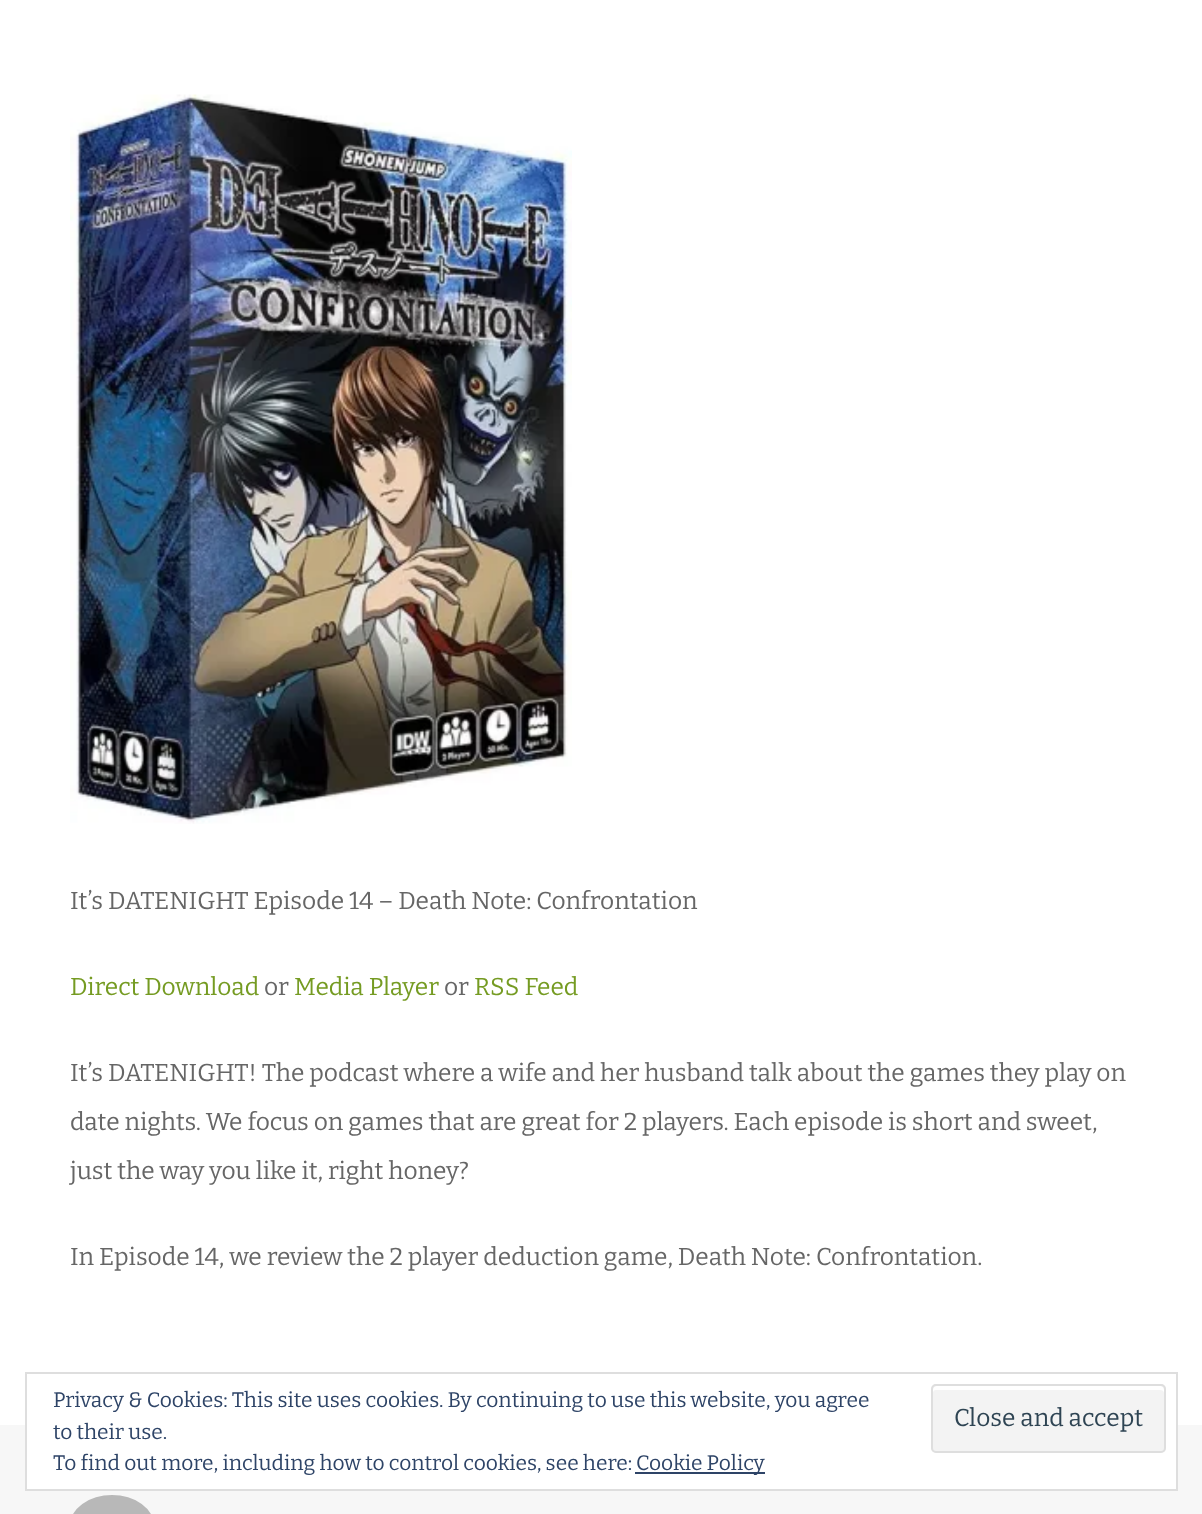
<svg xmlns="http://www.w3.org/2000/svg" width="1202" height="1514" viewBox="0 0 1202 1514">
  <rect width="100%" height="100%" fill="#fff"/>
  <image x="70" y="94" width="502" height="730" href="img/1.png"/>
  <path d="M0 1425h1202v89H0z" fill="#f7f7f7"/>
  <rect x="70" y="1495" width="84" height="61" rx="42" fill="#b8b8b8"/>
  <path d="M27 1425h1149v64H27z" fill="#fff"/>
  <path d="M26 1373h1151v117H26z" fill="none" stroke="#dedede" stroke-width="2"/>
  <rect x="931" y="1384" width="235" height="69" rx="5" fill="#f3f3f3"/>
  <path d="M936 1390H1160C1162 1390 1164 1391 1164 1393V1390C1164 1388 1162 1386 1160 1386H937C935 1386 933 1388 933 1390V1393C933 1391 934 1390 936 1390Z" fill="#fff"/>
  <rect x="932" y="1385" width="233" height="67" rx="4" fill="none" stroke="#dedede" stroke-width="2"/>
  <path d="M635 1472h130v2H635z" fill="#2e4467"/>
  <text x="70" y="909" font-family="Bitter" font-size="24.5" fill="#666">It’s DATENIGHT Episode 14 – Death Note: Confrontation</text>
  <text x="70" y="995" font-family="Bitter" font-size="24.5" fill="#759b22">Direct Download</text>
  <text x="264" y="995" font-family="Bitter" font-size="24.5" fill="#666">or</text>
  <text x="294" y="995" font-family="Bitter" font-size="24.5" fill="#759b22">Media Player</text>
  <text x="444" y="995" font-family="Bitter" font-size="24.5" fill="#666">or</text>
  <text x="474" y="995" font-family="Bitter" font-size="24.5" fill="#759b22">RSS Feed</text>
  <g font-family="Bitter" font-size="24.5" fill="#666">
    <text x="70" y="1081">It’s DATENIGHT! The podcast where a wife and her husband talk about the games they play on</text>
    <text x="70" y="1130">date nights. We focus on games that are great for 2 players. Each episode is short and sweet,</text>
    <text x="70" y="1179">just the way you like it, right honey?</text>
    <text x="70" y="1265">In Episode 14, we review the 2 player deduction game, Death Note: Confrontation.</text>
  </g>
  <g font-family="Bitter" font-size="21" fill="#2e4467">
    <text x="53" y="1407">Privacy &amp; Cookies: This site uses cookies. By continuing to use this website, you agree</text>
    <text x="53" y="1439">to their use.</text>
  </g>
  <text x="954" y="1426" font-family="Bitter" font-size="24.5" fill="#2e4453">Close and accept</text>
  <g font-family="Bitter" font-size="21" fill="#2e4467">
    <text x="53" y="1470">To find out more, including how to control cookies, see here:</text>
    <text x="636" y="1470">Cookie Policy</text>
  </g>
</svg>
